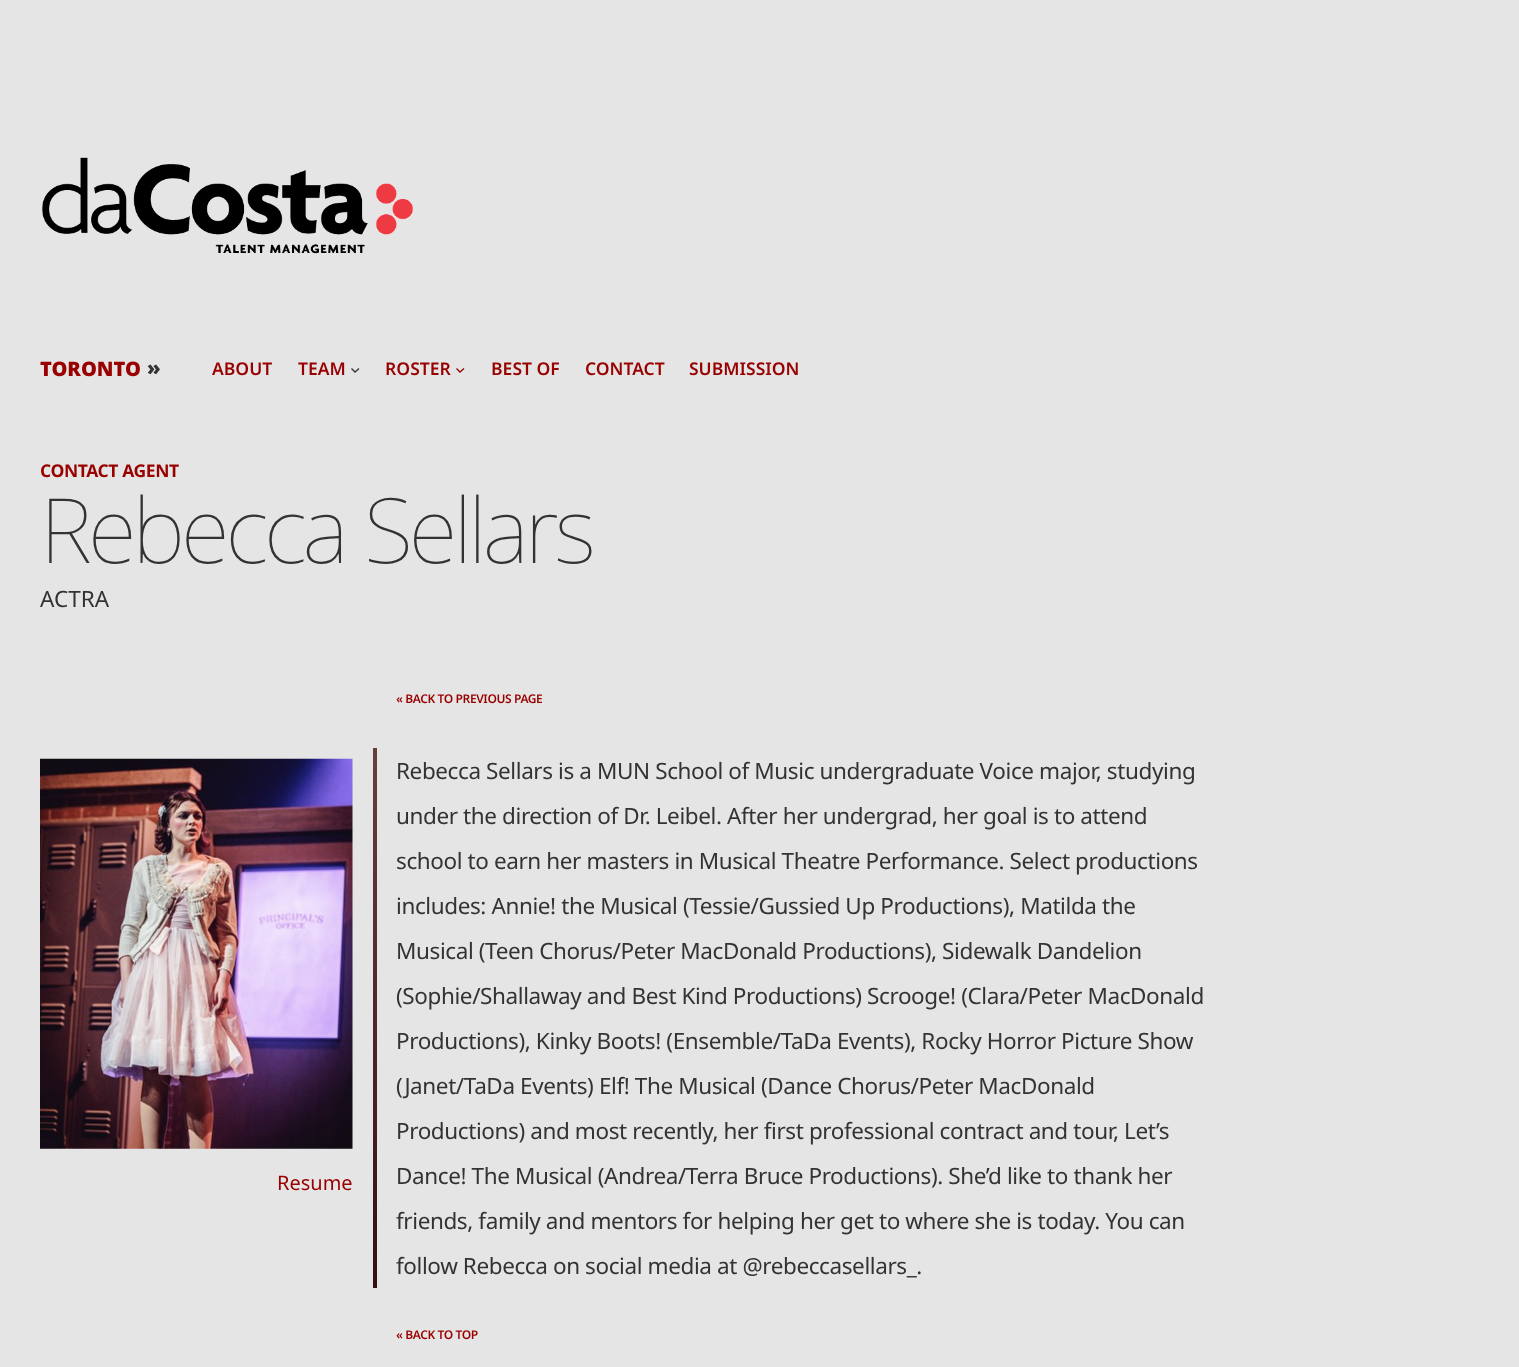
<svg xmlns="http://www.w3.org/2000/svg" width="1519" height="1367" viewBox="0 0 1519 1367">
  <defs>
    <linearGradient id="g1" gradientUnits="userSpaceOnUse" x1="374" y1="1288" x2="374" y2="748"><stop offset="0" stop-color="#311"/><stop offset="1" stop-color="#663e3e"/></linearGradient>
  </defs>
  <rect width="100%" height="100%" fill="#e5e5e5"/>
  <image x="42" y="157" width="371" height="97" href="img/1.png"/>
  <path d="M351.5 368.5L355 372L359 368.5" fill="none" stroke="#333" stroke-width="1.3"/>
  <path d="M456.5 368.5L460 372L464 368.5" fill="none" stroke="#900" stroke-width="1.3"/>
  <image x="40" y="758" width="313" height="391" href="img/2.png"/>
  <path d="M373 748h4v540H373z" fill="url(#g1)"/>
  <text x="40" y="376" font-family="Noto Sans" font-size="20" font-weight="900" fill="#900">TORONTO</text>
  <text x="147" y="375" font-family="Noto Sans" font-size="20" font-weight="900" fill="#333">»</text>
  <g font-family="Noto Sans" font-size="17.5" font-weight="600" fill="#900">
    <text x="212" y="375">ABOUT</text>
    <text x="298" y="375">TEAM</text>
    <text x="385" y="375">ROSTER</text>
    <text x="491" y="375">BEST OF</text>
    <text x="585" y="375">CONTACT</text>
    <text x="689" y="375">SUBMISSION</text>
  </g>
  <text x="40" y="477" font-family="Noto Sans" font-size="17.5" font-weight="bold" letter-spacing="-0.4" fill="#900">CONTACT AGENT</text>
  <text x="40" y="563" font-family="Noto Sans" font-size="90" font-weight="100" letter-spacing="-4" fill="#333">Rebecca Sellars</text>
  <text x="40" y="607" font-family="Noto Sans" font-size="22.5" fill="#333">ACTRA</text>
  <text x="396" y="703" font-family="Noto Sans" font-size="12" font-weight="600" letter-spacing="-0.4" fill="#900">« BACK TO PREVIOUS PAGE</text>
  <text x="277" y="1190" font-family="Noto Sans" font-size="20" fill="#900">Resume</text>
  <g font-family="Noto Sans" font-size="22.5" letter-spacing="-0.4" fill="#333">
    <text x="396" y="779">Rebecca Sellars is a MUN School of Music undergraduate Voice major, studying</text>
    <text x="396" y="824">under the direction of Dr. Leibel. After her undergrad, her goal is to attend</text>
    <text x="396" y="869">school to earn her masters in Musical Theatre Performance. Select productions</text>
    <text x="396" y="914">includes: Annie! the Musical (Tessie/Gussied Up Productions), Matilda the</text>
    <text x="396" y="959">Musical (Teen Chorus/Peter MacDonald Productions), Sidewalk Dandelion</text>
    <text x="396" y="1004">(Sophie/Shallaway and Best Kind Productions) Scrooge! (Clara/Peter MacDonald</text>
    <text x="396" y="1049">Productions), Kinky Boots! (Ensemble/TaDa Events), Rocky Horror Picture Show</text>
    <text x="396" y="1094">(Janet/TaDa Events) Elf! The Musical (Dance Chorus/Peter MacDonald</text>
    <text x="396" y="1139">Productions) and most recently, her first professional contract and tour, Let’s</text>
    <text x="396" y="1184">Dance! The Musical (Andrea/Terra Bruce Productions). She’d like to thank her</text>
    <text x="396" y="1229">friends, family and mentors for helping her get to where she is today. You can</text>
    <text x="396" y="1274">follow Rebecca on social media at @rebeccasellars_.</text>
  </g>
  <text x="396" y="1339" font-family="Noto Sans" font-size="12" font-weight="600" letter-spacing="-0.4" fill="#900">« BACK TO TOP</text>
</svg>
